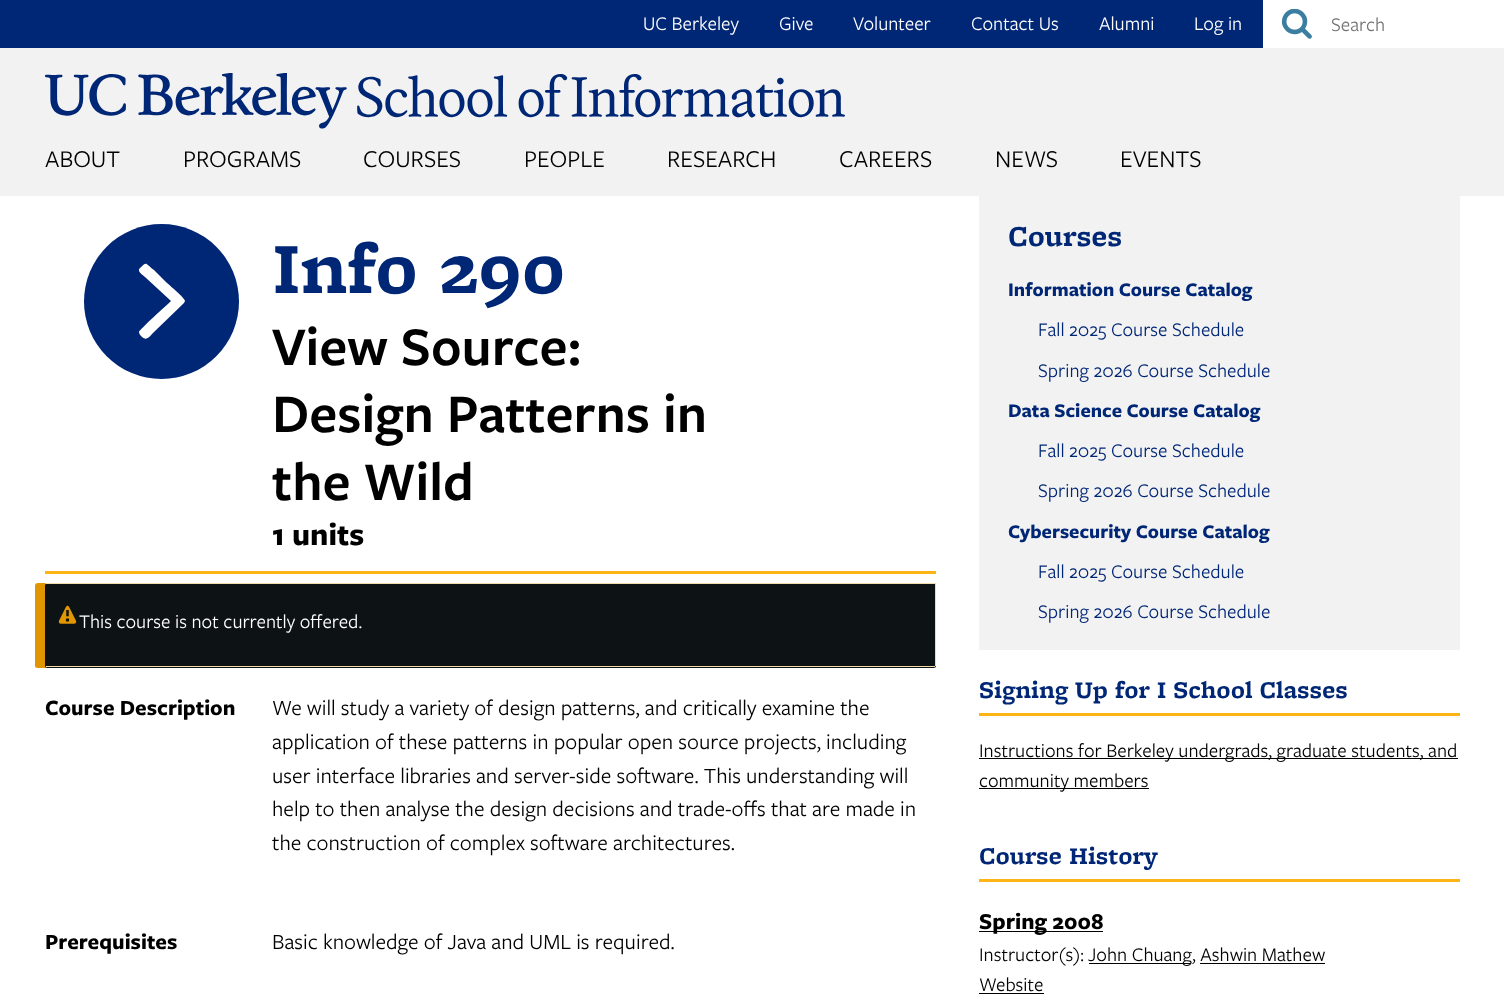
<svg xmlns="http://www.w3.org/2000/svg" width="1504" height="1006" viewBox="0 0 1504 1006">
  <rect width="100%" height="100%" fill="#fff"/>
  <path d="M0 48h1504v148H0z" fill="#f2f2f2"/>
  <path d="M0 0h1263v48H0z" fill="#002676"/>
  <image x="1281" y="9" width="31" height="30" href="img/1.png"/>
  <image x="45" y="73" width="800" height="56" href="img/2.png"/>
  <path d="M45 571h891v3H45z" fill="#fdb515"/>
  <circle cx="161.5" cy="301.5" r="77.5" fill="#002676"/>
  <path d="M185 301L184 303L154 332C149 337 147 341 142 337C141 336 139 334 139 332C139 330 167 305 171 301L145 277C144 276 136 271 140 268C147 261 145 263 154 270L166 282C169 285 185 298 185 301Z" fill="#fff"/>
  <path d="M38 583C36 583 35 584 35 586V666C35 667 36 668 38 668H924H925H48C46 668 45 666 45 665V585C45 584 45 583 46 583Z" fill="#e09600"/>
  <rect x="45" y="583" width="891" height="85" rx="2.5" fill="#0d1214"/>
  <image x="58" y="605" width="19" height="19" href="img/3.png"/>
  <path d="M46 583h889v1H46z" fill="#f4daa6"/>
  <path d="M935 584h1v82H935z" fill="#f4daa6"/>
  <path d="M46 666h889v1H46z" fill="#f4daa6"/>
  <path d="M979 196h481v454H979z" fill="#f2f2f2"/>
  <path d="M979 713h481v3H979z" fill="#fdb515"/>
  <path d="M979 758h479v1H979z" fill="#000"/>
  <path d="M979 788h170v1H979z" fill="#000"/>
  <path d="M979 879h481v3H979z" fill="#fdb515"/>
  <path d="M979 931h124v1H979z" fill="#000"/>
  <path d="M1089 963h102v1H1089z" fill="#000"/>
  <path d="M1200 963h125v1H1200z" fill="#000"/>
  <path d="M979 993h65v1H979z" fill="#000"/>
  <g font-family="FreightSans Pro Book" font-size="20" fill="#fff">
    <text x="643" y="30">UC Berkeley</text>
    <text x="779" y="30">Give</text>
    <text x="853" y="30">Volunteer</text>
    <text x="971" y="30">Contact Us</text>
    <text x="1099" y="30">Alumni</text>
    <text x="1194" y="30">Log in</text>
  </g>
  <text x="1331" y="31" font-family="FreightSans Pro Book" font-size="20" fill="#757575">Search</text>
  <g font-family="FreightSans Pro Book" font-size="25" fill="#000">
    <text x="45" y="167">ABOUT</text>
    <text x="183" y="167">PROGRAMS</text>
    <text x="363" y="167">COURSES</text>
    <text x="524" y="167">PEOPLE</text>
    <text x="667" y="167">RESEARCH</text>
    <text x="839" y="167">CAREERS</text>
    <text x="995" y="167">NEWS</text>
    <text x="1120" y="167">EVENTS</text>
  </g>
  <text x="272" y="293" font-family="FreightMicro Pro" font-size="75" font-weight="bold" fill="#002676">Info 290</text>
  <g font-family="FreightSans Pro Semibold" font-size="56.25" font-weight="600" fill="#000">
    <text x="272" y="365">View Source:</text>
    <text x="272" y="432">Design Patterns in</text>
    <text x="272" y="500">the Wild</text>
  </g>
  <text x="272" y="545" font-family="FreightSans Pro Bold" font-size="32.5" font-weight="bold" fill="#000">1 units</text>
  <text x="79" y="628" font-family="FreightSans Pro Book" font-size="20" fill="#fff">This course is not currently offered.</text>
  <text x="45" y="715" font-family="FreightSans Pro Bold" font-size="22.5" font-weight="bold" fill="#000">Course Description</text>
  <g font-family="FreightSans Pro Book" font-size="22.5" fill="#000">
    <text x="272" y="715">We will study a variety of design patterns, and critically examine the</text>
    <text x="272" y="749">application of these patterns in popular open source projects, including</text>
    <text x="272" y="783">user interface libraries and server-side software. This understanding will</text>
    <text x="272" y="816">help to then analyse the design decisions and trade-offs that are made in</text>
    <text x="272" y="850">the construction of complex software architectures.</text>
  </g>
  <text x="45" y="949" font-family="FreightSans Pro Bold" font-size="22.5" font-weight="bold" fill="#000">Prerequisites</text>
  <text x="272" y="949" font-family="FreightSans Pro Book" font-size="22.5" fill="#000">Basic knowledge of Java and UML is required.</text>
  <text x="1008" y="246" font-family="FreightMicro Pro" font-size="30" font-weight="bold" fill="#002676">Courses</text>
  <text x="1008" y="296" font-family="FreightSans Pro Bold" font-size="20" font-weight="bold" fill="#002676">Information Course Catalog</text>
  <g font-family="FreightSans Pro Book" font-size="20" fill="#002676">
    <text x="1038" y="336">Fall 2025 Course Schedule</text>
    <text x="1038" y="377">Spring 2026 Course Schedule</text>
  </g>
  <text x="1008" y="417" font-family="FreightSans Pro Bold" font-size="20" font-weight="bold" fill="#002676">Data Science Course Catalog</text>
  <g font-family="FreightSans Pro Book" font-size="20" fill="#002676">
    <text x="1038" y="457">Fall 2025 Course Schedule</text>
    <text x="1038" y="497">Spring 2026 Course Schedule</text>
  </g>
  <text x="1008" y="538" font-family="FreightSans Pro Bold" font-size="20" font-weight="bold" fill="#002676">Cybersecurity Course Catalog</text>
  <g font-family="FreightSans Pro Book" font-size="20" fill="#002676">
    <text x="1038" y="578">Fall 2025 Course Schedule</text>
    <text x="1038" y="618">Spring 2026 Course Schedule</text>
  </g>
  <text x="979" y="698" font-family="FreightMicro Pro" font-size="25" font-weight="bold" fill="#002676">Signing Up for I School Classes</text>
  <g font-family="FreightSans Pro Book" font-size="20" fill="#000">
    <text x="979" y="757">Instructions for Berkeley undergrads, graduate students, and</text>
    <text x="979" y="787">community members</text>
  </g>
  <text x="979" y="864" font-family="FreightMicro Pro" font-size="25" font-weight="bold" fill="#002676">Course History</text>
  <text x="979" y="929" font-family="FreightSans Pro Bold" font-size="23.5" font-weight="bold" fill="#000">Spring 2008</text>
  <g font-family="FreightSans Pro Book" font-size="20" fill="#000">
    <text x="979" y="961">Instructor(s):</text>
    <text x="1088" y="961">John Chuang</text>
    <text x="1192" y="961">, Ashwin Mathew</text>
    <text x="979" y="991">Website</text>
  </g>
</svg>
